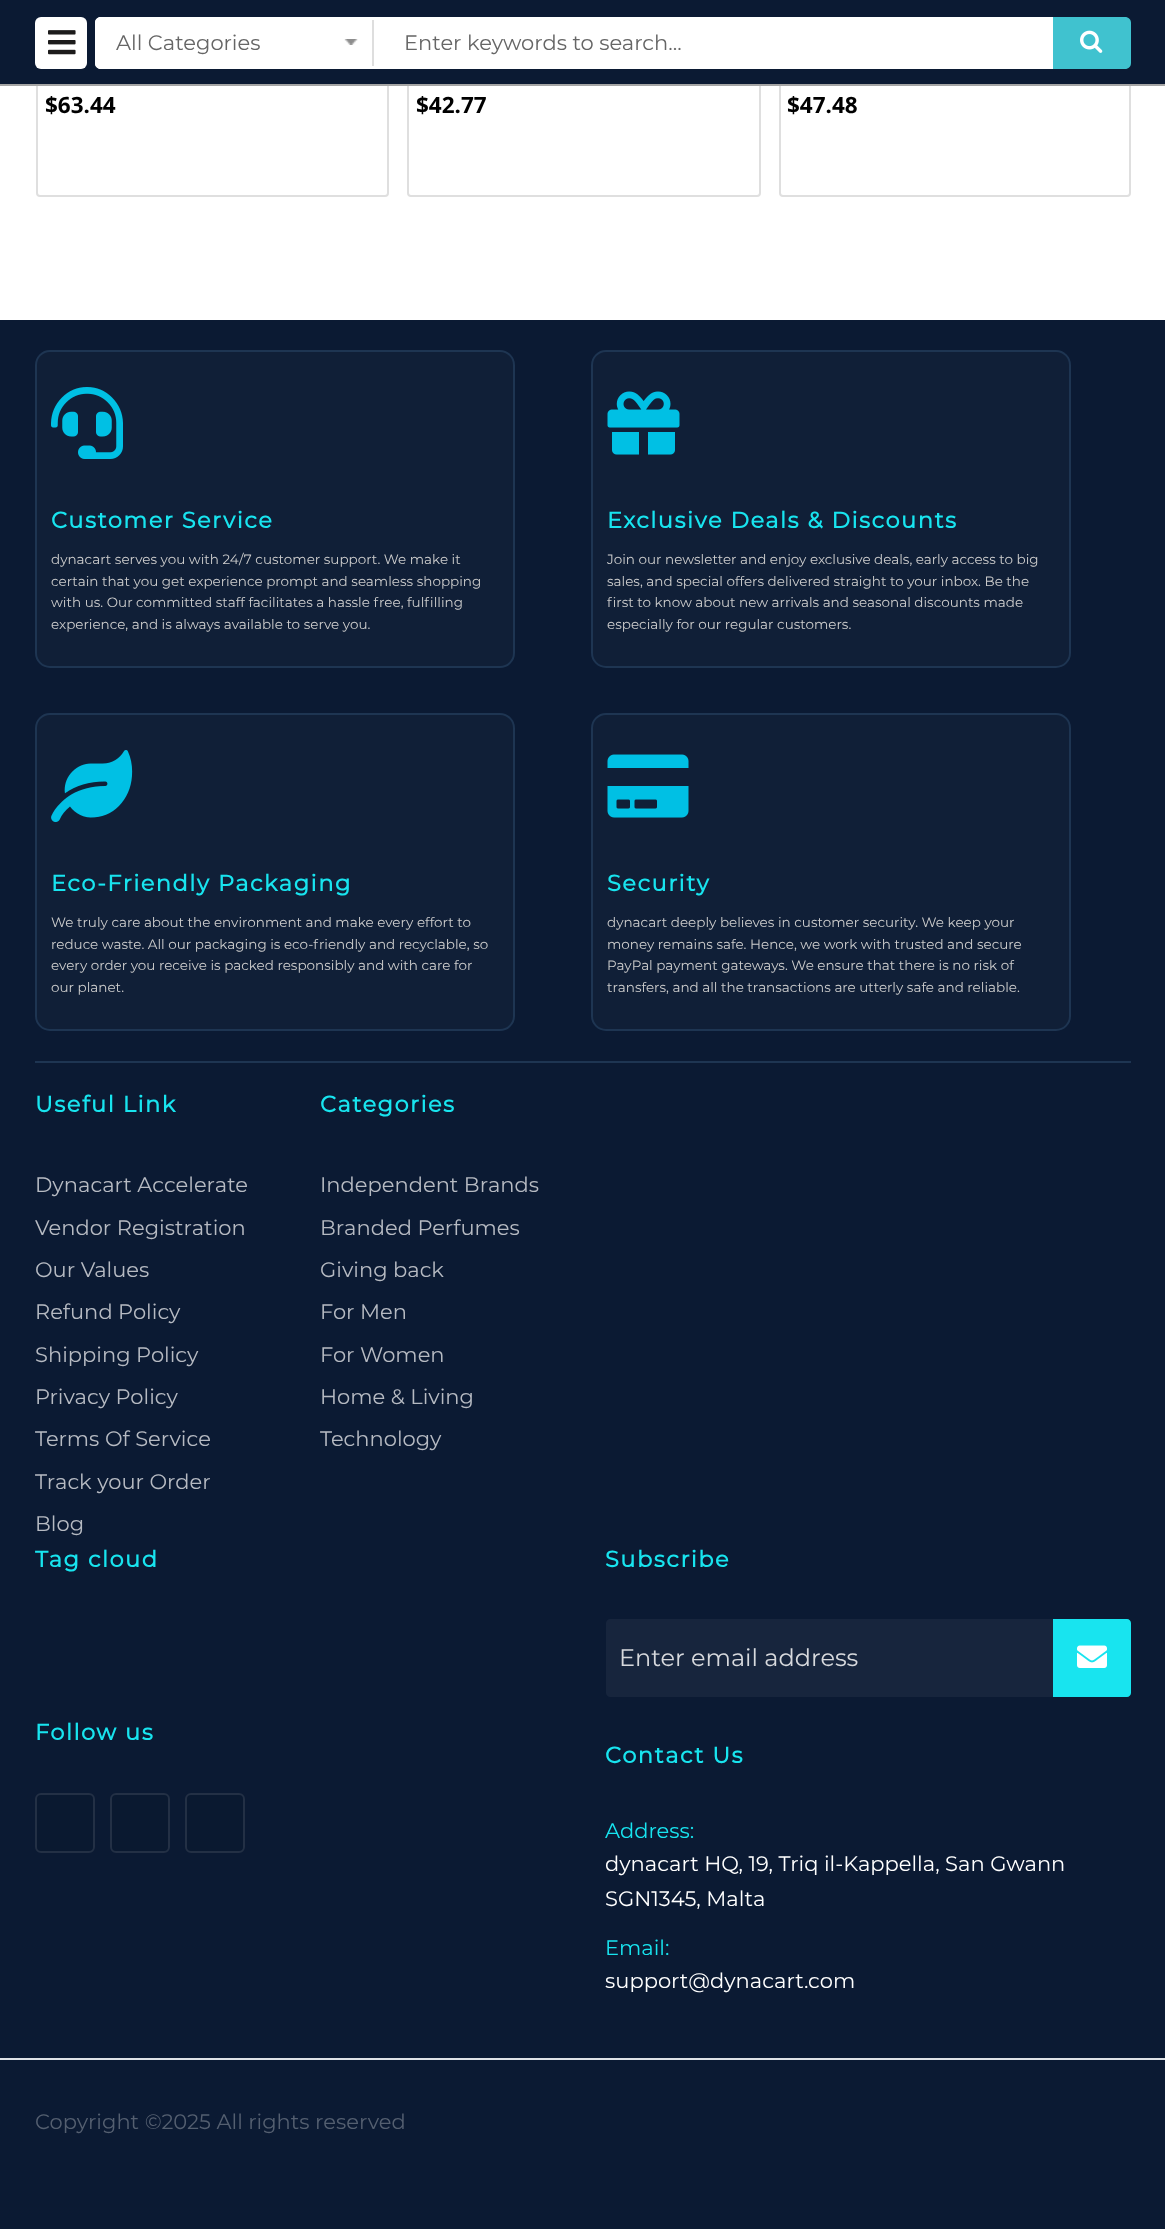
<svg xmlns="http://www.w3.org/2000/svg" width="1165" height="2229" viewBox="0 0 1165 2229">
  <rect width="100%" height="100%" fill="#fff"/>
  <rect x="37" y="-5" width="351" height="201" rx="3" fill="none" stroke="#dfdfdf" stroke-width="2"/>
  <rect x="408" y="-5" width="352" height="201" rx="3" fill="none" stroke="#dfdfdf" stroke-width="2"/>
  <rect x="780" y="-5" width="350" height="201" rx="3" fill="none" stroke="#dfdfdf" stroke-width="2"/>
  <path d="M0 84h1165v2H0z" fill="#a5a5a5"/>
  <path d="M0 0h1165v84H0z" fill="#0b1a33"/>
  <rect x="35" y="17" width="52" height="52" rx="6" fill="#fff"/>
  <image x="48" y="30" width="28" height="25" href="img/1.png"/>
  <path d="M101 17H1053V69H101C97.5 69 95 66.5 95 63V23C95 19.5 97.5 17 101 17Z" fill="#fff"/>
  <path d="M372 20h2v46H372z" fill="#dedede"/>
  <path d="M101 17H372V69H101C97.5 69 95 66.5 95 63V23C95 19.5 97.5 17 101 17Z" fill="#fff"/>
  <image x="344" y="39" width="14" height="6" href="img/2.png"/>
  <path d="M1053 17H1125C1128.5 17 1131 19.5 1131 23V63C1131 66.5 1128.5 69 1125 69H1053Z" fill="#40c2cf"/>
  <image x="1080" y="30" width="23" height="23" href="img/3.png"/>
  <path d="M0 320h1165v1909H0z" fill="#0b1a33"/>
  <path d="M35 1061h1096v2H35z" fill="#1e3552"/>
  <rect x="36" y="351" width="478" height="316" rx="14" fill="#101f37" stroke="#1e3552" stroke-width="2"/>
  <image x="51" y="387" width="72" height="72" href="img/4.png"/>
  <rect x="592" y="351" width="478" height="316" rx="14" fill="#101f37" stroke="#1e3552" stroke-width="2"/>
  <image x="607" y="391" width="73" height="64" href="img/5.png"/>
  <rect x="36" y="714" width="478" height="316" rx="14" fill="#101f37" stroke="#1e3552" stroke-width="2"/>
  <image x="51" y="750" width="82" height="73" href="img/6.png"/>
  <rect x="592" y="714" width="478" height="316" rx="14" fill="#101f37" stroke="#1e3552" stroke-width="2"/>
  <image x="607" y="754" width="82" height="64" href="img/7.png"/>
  <rect x="36" y="1794" width="58" height="58" rx="5" fill="#0a1930" stroke="#233045" stroke-width="2"/>
  <rect x="111" y="1794" width="58" height="58" rx="5" fill="#0a1930" stroke="#233045" stroke-width="2"/>
  <rect x="186" y="1794" width="58" height="58" rx="5" fill="#0a1930" stroke="#233045" stroke-width="2"/>
  <path d="M610 1619H1053V1697H610C608 1697 606 1695 606 1693V1623C606 1621 608 1619 610 1619Z" fill="#17253d"/>
  <path d="M1053 1619H1127C1129 1619 1131 1621 1131 1623V1693C1131 1695 1129 1697 1127 1697H1053Z" fill="#18e4ef"/>
  <image x="1077" y="1645" width="30" height="23" href="img/8.png"/>
  <path d="M0 2058h1165v2H0z" fill="#dee2e6"/>
  <g font-family="Montserrat" font-size="21" fill="#666">
    <text x="116" y="50">All Categories</text>
    <text x="404" y="50">Enter keywords to search...</text>
  </g>
  <g font-family="Noto Sans" font-size="22.5" font-weight="bold" fill="#000">
    <text x="45" y="113">$63.44</text>
    <text x="416" y="113">$42.77</text>
    <text x="787" y="113">$47.48</text>
  </g>
  <text x="51" y="528" font-family="Montserrat" font-size="22.5" font-weight="bold" letter-spacing="1.5" fill="#18e4ef">Customer Service</text>
  <g font-family="Montserrat" font-size="13.5" fill="#ccc">
    <text x="51" y="564">dynacart serves you with 24/7 customer support. We make it</text>
    <text x="51" y="586">certain that you get experience prompt and seamless shopping</text>
    <text x="51" y="607">with us. Our committed staff facilitates a hassle free, fulfilling</text>
    <text x="51" y="629">experience, and is always available to serve you.</text>
  </g>
  <text x="607" y="528" font-family="Montserrat" font-size="22.5" font-weight="bold" letter-spacing="1.5" fill="#18e4ef">Exclusive Deals &amp; Discounts</text>
  <g font-family="Montserrat" font-size="13.5" fill="#ccc">
    <text x="607" y="564">Join our newsletter and enjoy exclusive deals, early access to big</text>
    <text x="607" y="586">sales, and special offers delivered straight to your inbox. Be the</text>
    <text x="607" y="607">first to know about new arrivals and seasonal discounts made</text>
    <text x="607" y="629">especially for our regular customers.</text>
  </g>
  <text x="51" y="891" font-family="Montserrat" font-size="22.5" font-weight="bold" letter-spacing="1.5" fill="#18e4ef">Eco-Friendly Packaging</text>
  <g font-family="Montserrat" font-size="13.5" fill="#ccc">
    <text x="51" y="927">We truly care about the environment and make every effort to</text>
    <text x="51" y="949">reduce waste. All our packaging is eco-friendly and recyclable, so</text>
    <text x="51" y="970">every order you receive is packed responsibly and with care for</text>
    <text x="51" y="992">our planet.</text>
  </g>
  <text x="607" y="891" font-family="Montserrat" font-size="22.5" font-weight="bold" letter-spacing="1.5" fill="#18e4ef">Security</text>
  <g font-family="Montserrat" font-size="13.5" fill="#ccc">
    <text x="607" y="927">dynacart deeply believes in customer security. We keep your</text>
    <text x="607" y="949">money remains safe. Hence, we work with trusted and secure</text>
    <text x="607" y="970">PayPal payment gateways. We ensure that there is no risk of</text>
    <text x="607" y="992">transfers, and all the transactions are utterly safe and reliable.</text>
  </g>
  <text x="35" y="1112" font-family="Montserrat" font-size="22.5" font-weight="bold" letter-spacing="1.5" fill="#18e4ef">Useful Link</text>
  <g font-family="Montserrat" font-size="21" fill="#b6bac2">
    <text x="35" y="1192">Dynacart Accelerate</text>
    <text x="35" y="1235">Vendor Registration</text>
    <text x="35" y="1277">Our Values</text>
    <text x="35" y="1319">Refund Policy</text>
    <text x="35" y="1362">Shipping Policy</text>
    <text x="35" y="1404">Privacy Policy</text>
    <text x="35" y="1446">Terms Of Service</text>
    <text x="35" y="1489">Track your Order</text>
    <text x="35" y="1531">Blog</text>
  </g>
  <text x="320" y="1112" font-family="Montserrat" font-size="22.5" font-weight="bold" letter-spacing="1.5" fill="#18e4ef">Categories</text>
  <g font-family="Montserrat" font-size="21" fill="#b6bac2">
    <text x="320" y="1192">Independent Brands</text>
    <text x="320" y="1235">Branded Perfumes</text>
    <text x="320" y="1277">Giving back</text>
    <text x="320" y="1319">For Men</text>
    <text x="320" y="1362">For Women</text>
    <text x="320" y="1404">Home &amp; Living</text>
    <text x="320" y="1446">Technology</text>
  </g>
  <g font-family="Montserrat" font-size="22.5" font-weight="bold" letter-spacing="1.5" fill="#18e4ef">
    <text x="35" y="1567">Tag cloud</text>
    <text x="35" y="1740">Follow us</text>
    <text x="605" y="1567">Subscribe</text>
  </g>
  <text x="619" y="1666" font-family="Montserrat" font-size="24" fill="#d7d9dd">Enter email address</text>
  <text x="605" y="1763" font-family="Montserrat" font-size="22.5" font-weight="bold" letter-spacing="1.5" fill="#18e4ef">Contact Us</text>
  <text x="605" y="1838" font-family="Montserrat" font-size="21" fill="#18e4ef">Address:</text>
  <g font-family="Montserrat" font-size="21" fill="#fff">
    <text x="605" y="1871">dynacart HQ, 19, Triq il-Kappella, San Gwann</text>
    <text x="605" y="1906">SGN1345, Malta</text>
  </g>
  <text x="605" y="1955" font-family="Montserrat" font-size="21" fill="#18e4ef">Email:</text>
  <text x="605" y="1988" font-family="Montserrat" font-size="21" fill="#fff">support@dynacart.com</text>
  <text x="35" y="2129" font-family="Montserrat" font-size="21" fill="#545f70">Copyright ©2025 All rights reserved</text>
</svg>
